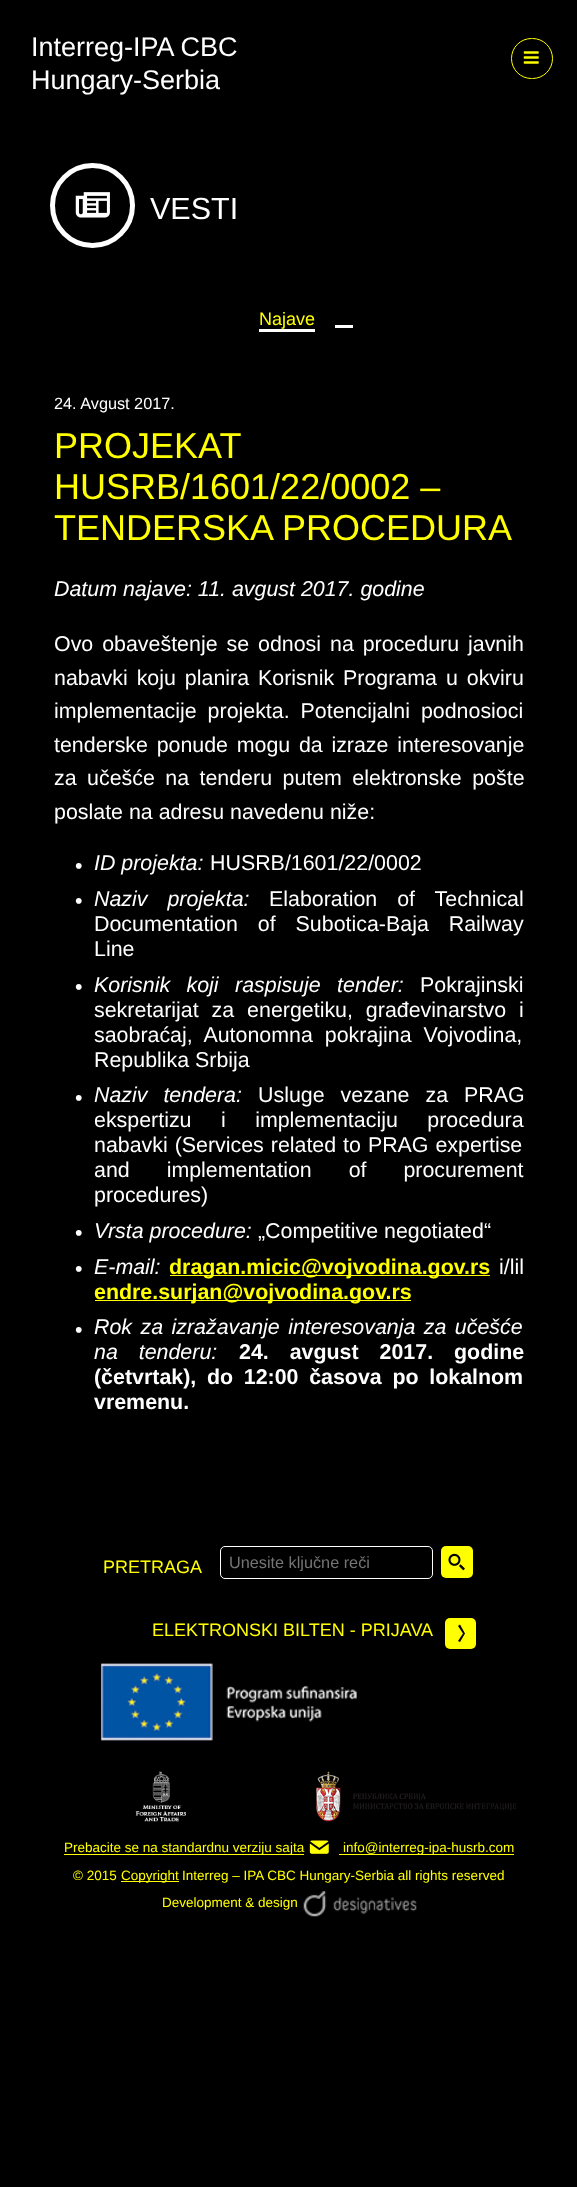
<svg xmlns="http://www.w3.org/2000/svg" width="577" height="2187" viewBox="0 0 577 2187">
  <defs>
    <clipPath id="clip1"><path d="M230 1553h194v18H230z"/></clipPath>
  </defs>
  <rect width="100%" height="100%" fill="#000"/>
  <rect x="511.5" y="38.5" width="41" height="40" rx="20" fill="none" stroke="#ff0"/>
  <image x="523" y="51" width="16" height="13" href="img/1.png"/>
  <circle cx="92.5" cy="205.5" r="40" fill="none" stroke="#fff" stroke-width="5"/>
  <image x="75" y="192" width="35" height="26" href="img/2.png"/>
  <path d="M335 325h18v3H335z" fill="#fff"/>
  <path d="M259 329h56v3H259z" fill="#fff"/>
  <path d="M170 1275h320v1H170z" fill="#ff0"/>
  <path d="M95 1300h316v1H95z" fill="#ff0"/>
  <rect x="220.5" y="1546.5" width="212" height="32" rx="4.5" fill="none" stroke="#fff"/>
  <rect x="441" y="1546" width="32" height="32" rx="5" fill="#ff0"/>
  <image x="448" y="1553" width="17" height="18" href="img/3.png"/>
  <rect x="445" y="1618" width="31" height="31" rx="5" fill="#ff0"/>
  <path d="M460 1642L458 1641L463 1633.5L458 1626L460 1624.5L465 1633.5Z" fill="#000"/>
  <image x="101" y="1663" width="256" height="78" href="img/4.png"/>
  <image x="135" y="1771" width="51" height="51" href="img/5.png"/>
  <image x="316" y="1771" width="201" height="51" href="img/6.png"/>
  <path d="M64 1854h240v1H64z" fill="#ff0"/>
  <image x="309" y="1840" width="20" height="14" href="img/7.png"/>
  <path d="M339 1854h175v1H339z" fill="#ff0"/>
  <path d="M121 1881h58v1H121z" fill="#ff0"/>
  <image x="303" y="1891" width="114" height="26" href="img/8.png"/>
  <g font-family="Liberation Sans" font-size="27" fill="#fff">
    <text x="31" y="56">Interreg-IPA CBC</text>
    <text x="31" y="89">Hungary-Serbia</text>
  </g>
  <text x="150" y="219" font-family="Liberation Sans" font-size="30.5" fill="#fff">VESTI</text>
  <text x="259" y="325" font-family="Liberation Sans" font-size="18" fill="#ff0">Najave</text>
  <text x="54" y="409" font-family="Liberation Sans" font-size="16.25" fill="#fff">24. Avgust 2017.</text>
  <g font-family="Liberation Sans" font-size="36" fill="#ff0">
    <text x="54" y="458">PROJEKAT</text>
    <text x="54" y="499">HUSRB/1601/22/0002 –</text>
    <text x="54" y="540">TENDERSKA PROCEDURA</text>
  </g>
  <text x="54" y="596" font-family="Liberation Sans" font-size="21.4" font-style="italic" fill="#fff">Datum najave: 11. avgust 2017. godine</text>
  <g font-family="Liberation Sans" font-size="21.4" fill="#fff">
    <text x="54" y="651" word-spacing="3">Ovo obaveštenje se odnosi na proceduru javnih</text>
    <text x="54" y="685" word-spacing="3">nabavki koju planira Korisnik Programa u okviru</text>
    <text x="54" y="718" word-spacing="5">implementacije projekta. Potencijalni podnosioci</text>
    <text x="54" y="752" word-spacing="2.75">tenderske ponude mogu da izraze interesovanje</text>
    <text x="54" y="785" word-spacing="4.5">za učešće na tenderu putem elektronske pošte</text>
    <text x="54" y="819">poslate na adresu navedenu niže:</text>
    <text x="75" y="873">•</text>
  </g>
  <text x="94" y="870" font-family="Liberation Sans" font-size="21.4" font-style="italic" fill="#fff">ID projekta:</text>
  <g font-family="Liberation Sans" font-size="21.4" fill="#fff">
    <text x="210" y="870">HUSRB/1601/22/0002</text>
    <text x="75" y="908">•</text>
  </g>
  <text x="94" y="906" word-spacing="14" font-family="Liberation Sans" font-size="21.4" font-style="italic" fill="#fff">Naziv projekta:</text>
  <g font-family="Liberation Sans" font-size="21.4" fill="#fff">
    <text x="269" y="906" word-spacing="14">Elaboration of Technical</text>
    <text x="94" y="931" word-spacing="14">Documentation of Subotica-Baja Railway</text>
    <text x="94" y="956">Line</text>
    <text x="75" y="994">•</text>
  </g>
  <text x="94" y="992" word-spacing="10.5" font-family="Liberation Sans" font-size="21.4" font-style="italic" fill="#fff">Korisnik koji raspisuje tender:</text>
  <g font-family="Liberation Sans" font-size="21.4" fill="#fff">
    <text x="420" y="992">Pokrajinski</text>
    <text x="94" y="1017" word-spacing="7">sekretarijat za energetiku, građevinarstvo i</text>
    <text x="94" y="1042" word-spacing="6">saobraćaj, Autonomna pokrajina Vojvodina,</text>
    <text x="94" y="1067">Republika Srbija</text>
    <text x="75" y="1105">•</text>
  </g>
  <text x="94" y="1102" word-spacing="10" font-family="Liberation Sans" font-size="21.4" font-style="italic" fill="#fff">Naziv tendera:</text>
  <g font-family="Liberation Sans" font-size="21.4" fill="#fff">
    <text x="258" y="1102" word-spacing="10">Usluge vezane za PRAG</text>
    <text x="94" y="1127" word-spacing="23.5">ekspertizu i implementaciju procedura</text>
    <text x="94" y="1152" word-spacing="1">nabavki (Services related to PRAG expertise</text>
    <text x="94" y="1177" word-spacing="31">and implementation of procurement</text>
    <text x="94" y="1202">procedures)</text>
    <text x="75" y="1240">•</text>
  </g>
  <text x="94" y="1238" font-family="Liberation Sans" font-size="21.4" font-style="italic" fill="#fff">Vrsta procedure:</text>
  <g font-family="Liberation Sans" font-size="21.4" fill="#fff">
    <text x="258" y="1238">„Competitive negotiated“</text>
    <text x="75" y="1276">•</text>
  </g>
  <text x="94" y="1274" font-family="Liberation Sans" font-size="21.4" font-style="italic" fill="#fff">E-mail:</text>
  <text x="169" y="1274" font-family="Liberation Sans" font-size="21.4" font-weight="bold" fill="#ff0">dragan.micic@vojvodina.gov.rs</text>
  <text x="499" y="1274" font-family="Liberation Sans" font-size="21.4" fill="#fff">i/lil</text>
  <text x="94" y="1299" font-family="Liberation Sans" font-size="21.4" font-weight="bold" fill="#ff0">endre.surjan@vojvodina.gov.rs</text>
  <text x="75" y="1337" font-family="Liberation Sans" font-size="21.4" fill="#fff">•</text>
  <g font-family="Liberation Sans" font-size="21.4" font-style="italic" fill="#fff">
    <text x="94" y="1334" word-spacing="2.5">Rok za izražavanje interesovanja za učešće</text>
    <text x="94" y="1359" word-spacing="15">na tenderu:</text>
  </g>
  <g font-family="Liberation Sans" font-size="21.4" font-weight="bold" fill="#fff">
    <text x="239" y="1359" word-spacing="15">24. avgust 2017. godine</text>
    <text x="94" y="1384" word-spacing="4.75">(četvrtak), do 12:00 časova po lokalnom</text>
    <text x="94" y="1409">vremenu.</text>
  </g>
  <text x="103" y="1573" font-family="Liberation Sans" font-size="18" fill="#ff0">PRETRAGA</text>
  <g clip-path="url(#clip1)">
    <text x="229" y="1568" font-family="Liberation Sans" font-size="16.25" fill="#757575">Unesite ključne reči</text>
  </g>
  <text x="152" y="1636" font-family="Liberation Sans" font-size="18" fill="#ff0">ELEKTRONSKI BILTEN - PRIJAVA</text>
  <g font-family="Liberation Sans" font-size="13.5" fill="#ff0">
    <text x="64" y="1852">Prebacite se na standardnu verziju sajta</text>
    <text x="343" y="1852">info@interreg-ipa-husrb.com</text>
    <text x="73" y="1880">© 2015</text>
    <text x="121" y="1880">Copyright</text>
    <text x="182" y="1880">Interreg – IPA CBC Hungary-Serbia all rights reserved</text>
    <text x="162" y="1907">Development &amp; design</text>
  </g>
</svg>
